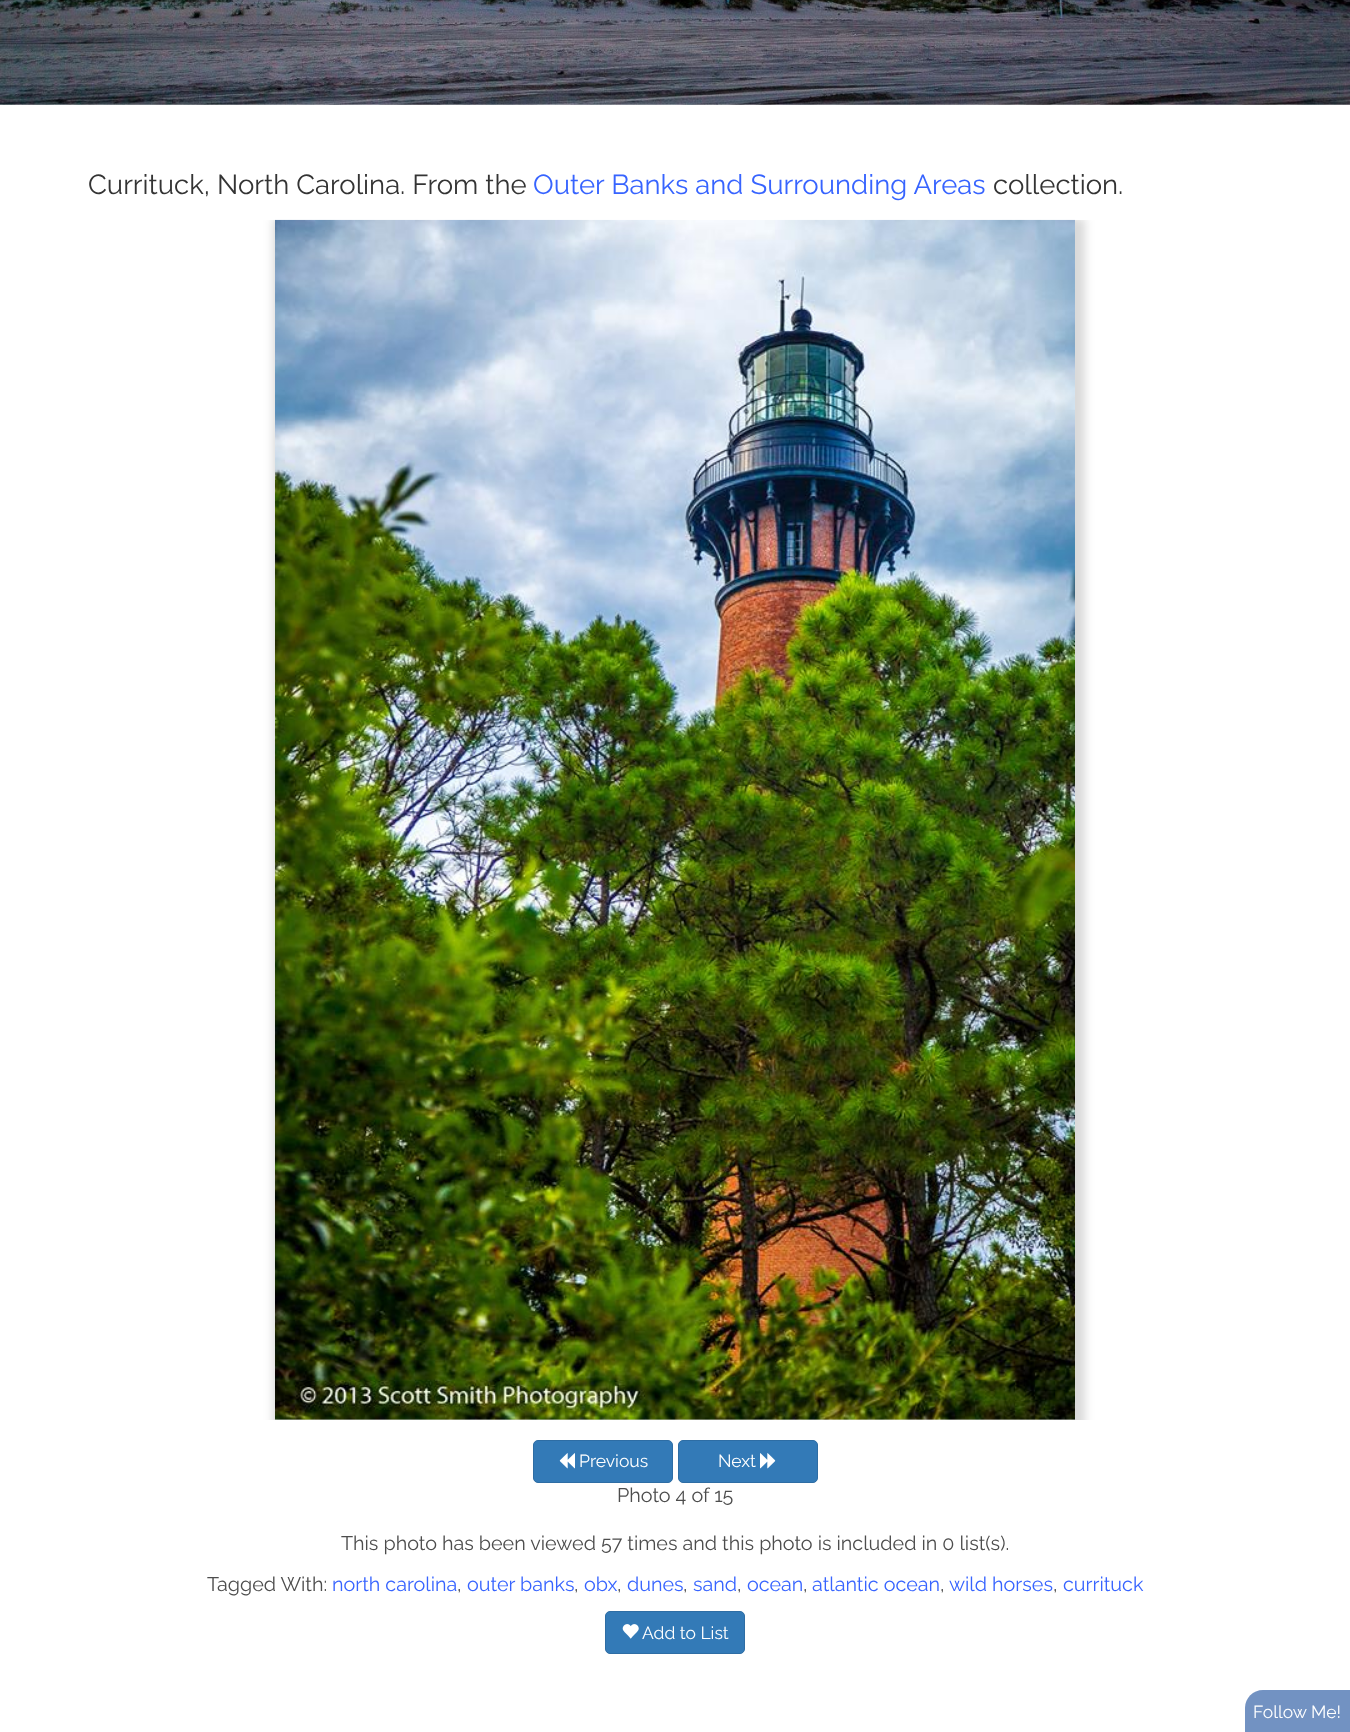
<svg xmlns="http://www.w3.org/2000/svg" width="1350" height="1732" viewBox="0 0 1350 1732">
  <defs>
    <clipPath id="clip1"><path d="M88 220h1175v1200H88z"/></clipPath>
  </defs>
  <rect width="100%" height="100%" fill="#fff"/>
  <image x="0" y="0" width="1350" height="105" href="img/1.png"/>
  <rect x="533.5" y="1440.5" width="139" height="42" rx="4.5" fill="#337ab7" stroke="#2e6da4"/>
  <rect x="678.5" y="1440.5" width="139" height="42" rx="4.5" fill="#337ab7" stroke="#2e6da4"/>
  <g clip-path="url(#clip1)">
    <path d="M273 218h812v1212H273z" fill="#00000026" filter="blur(5px)"/>
  </g>
  <image x="275" y="219" width="800" height="1201" href="img/2.png"/>
  <image x="559" y="1453" width="16" height="16" href="img/3.png"/>
  <image x="760" y="1453" width="16" height="16" href="img/4.png"/>
  <rect x="605.5" y="1611.5" width="139" height="42" rx="4.5" fill="#337ab7" stroke="#2e6da4"/>
  <image x="622" y="1624" width="17" height="15" href="img/5.png"/>
  <path d="M1263 1690H1350V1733H1245V1708C1245 1698 1253 1690 1263 1690Z" fill="#7292c2"/>
  <text x="88" y="194" font-family="Raleway" font-size="27.5" font-weight="100" fill="#343434">Currituck, North Carolina. From the</text>
  <text x="533" y="194" font-family="Raleway" font-size="27.5" font-weight="100" fill="#3764ff">Outer Banks and Surrounding Areas</text>
  <text x="993" y="194" font-family="Raleway" font-size="27.5" font-weight="100" fill="#343434">collection.</text>
  <g font-family="Raleway" font-size="17.5" font-weight="100" fill="#fff">
    <text x="579" y="1467">Previous</text>
    <text x="718" y="1467">Next</text>
  </g>
  <g font-family="Raleway" font-size="19.75" font-weight="100" fill="#4d4d4d">
    <text x="617" y="1502">Photo 4 of 15</text>
    <text x="341" y="1550">This photo has been viewed 57 times and this photo is included in 0 list(s).</text>
    <text x="207" y="1591">Tagged With:</text>
  </g>
  <text x="332" y="1591" font-family="Raleway" font-size="19.75" font-weight="100" fill="#3764ff">north carolina</text>
  <text x="457" y="1591" font-family="Raleway" font-size="19.75" font-weight="100" fill="#4d4d4d">,</text>
  <text x="467" y="1591" font-family="Raleway" font-size="19.75" font-weight="100" fill="#3764ff">outer banks</text>
  <text x="574" y="1591" font-family="Raleway" font-size="19.75" font-weight="100" fill="#4d4d4d">,</text>
  <text x="584" y="1591" font-family="Raleway" font-size="19.75" font-weight="100" fill="#3764ff">obx</text>
  <text x="617" y="1591" font-family="Raleway" font-size="19.75" font-weight="100" fill="#4d4d4d">,</text>
  <text x="627" y="1591" font-family="Raleway" font-size="19.75" font-weight="100" fill="#3764ff">dunes</text>
  <text x="683" y="1591" font-family="Raleway" font-size="19.75" font-weight="100" fill="#4d4d4d">,</text>
  <text x="693" y="1591" font-family="Raleway" font-size="19.75" font-weight="100" fill="#3764ff">sand</text>
  <text x="737" y="1591" font-family="Raleway" font-size="19.75" font-weight="100" fill="#4d4d4d">,</text>
  <text x="747" y="1591" font-family="Raleway" font-size="19.75" font-weight="100" fill="#3764ff">ocean</text>
  <text x="803" y="1591" font-family="Raleway" font-size="19.75" font-weight="100" fill="#4d4d4d">,</text>
  <text x="812" y="1591" font-family="Raleway" font-size="19.75" font-weight="100" fill="#3764ff">atlantic ocean</text>
  <text x="940" y="1591" font-family="Raleway" font-size="19.75" font-weight="100" fill="#4d4d4d">,</text>
  <text x="949" y="1591" font-family="Raleway" font-size="19.75" font-weight="100" fill="#3764ff">wild horses</text>
  <text x="1053" y="1591" font-family="Raleway" font-size="19.75" font-weight="100" fill="#4d4d4d">,</text>
  <text x="1063" y="1591" font-family="Raleway" font-size="19.75" font-weight="100" fill="#3764ff">currituck</text>
  <g font-family="Raleway" font-size="17.5" font-weight="100" fill="#fff">
    <text x="642" y="1639">Add to List</text>
    <text x="1253" y="1718">Follow Me!</text>
  </g>
</svg>
